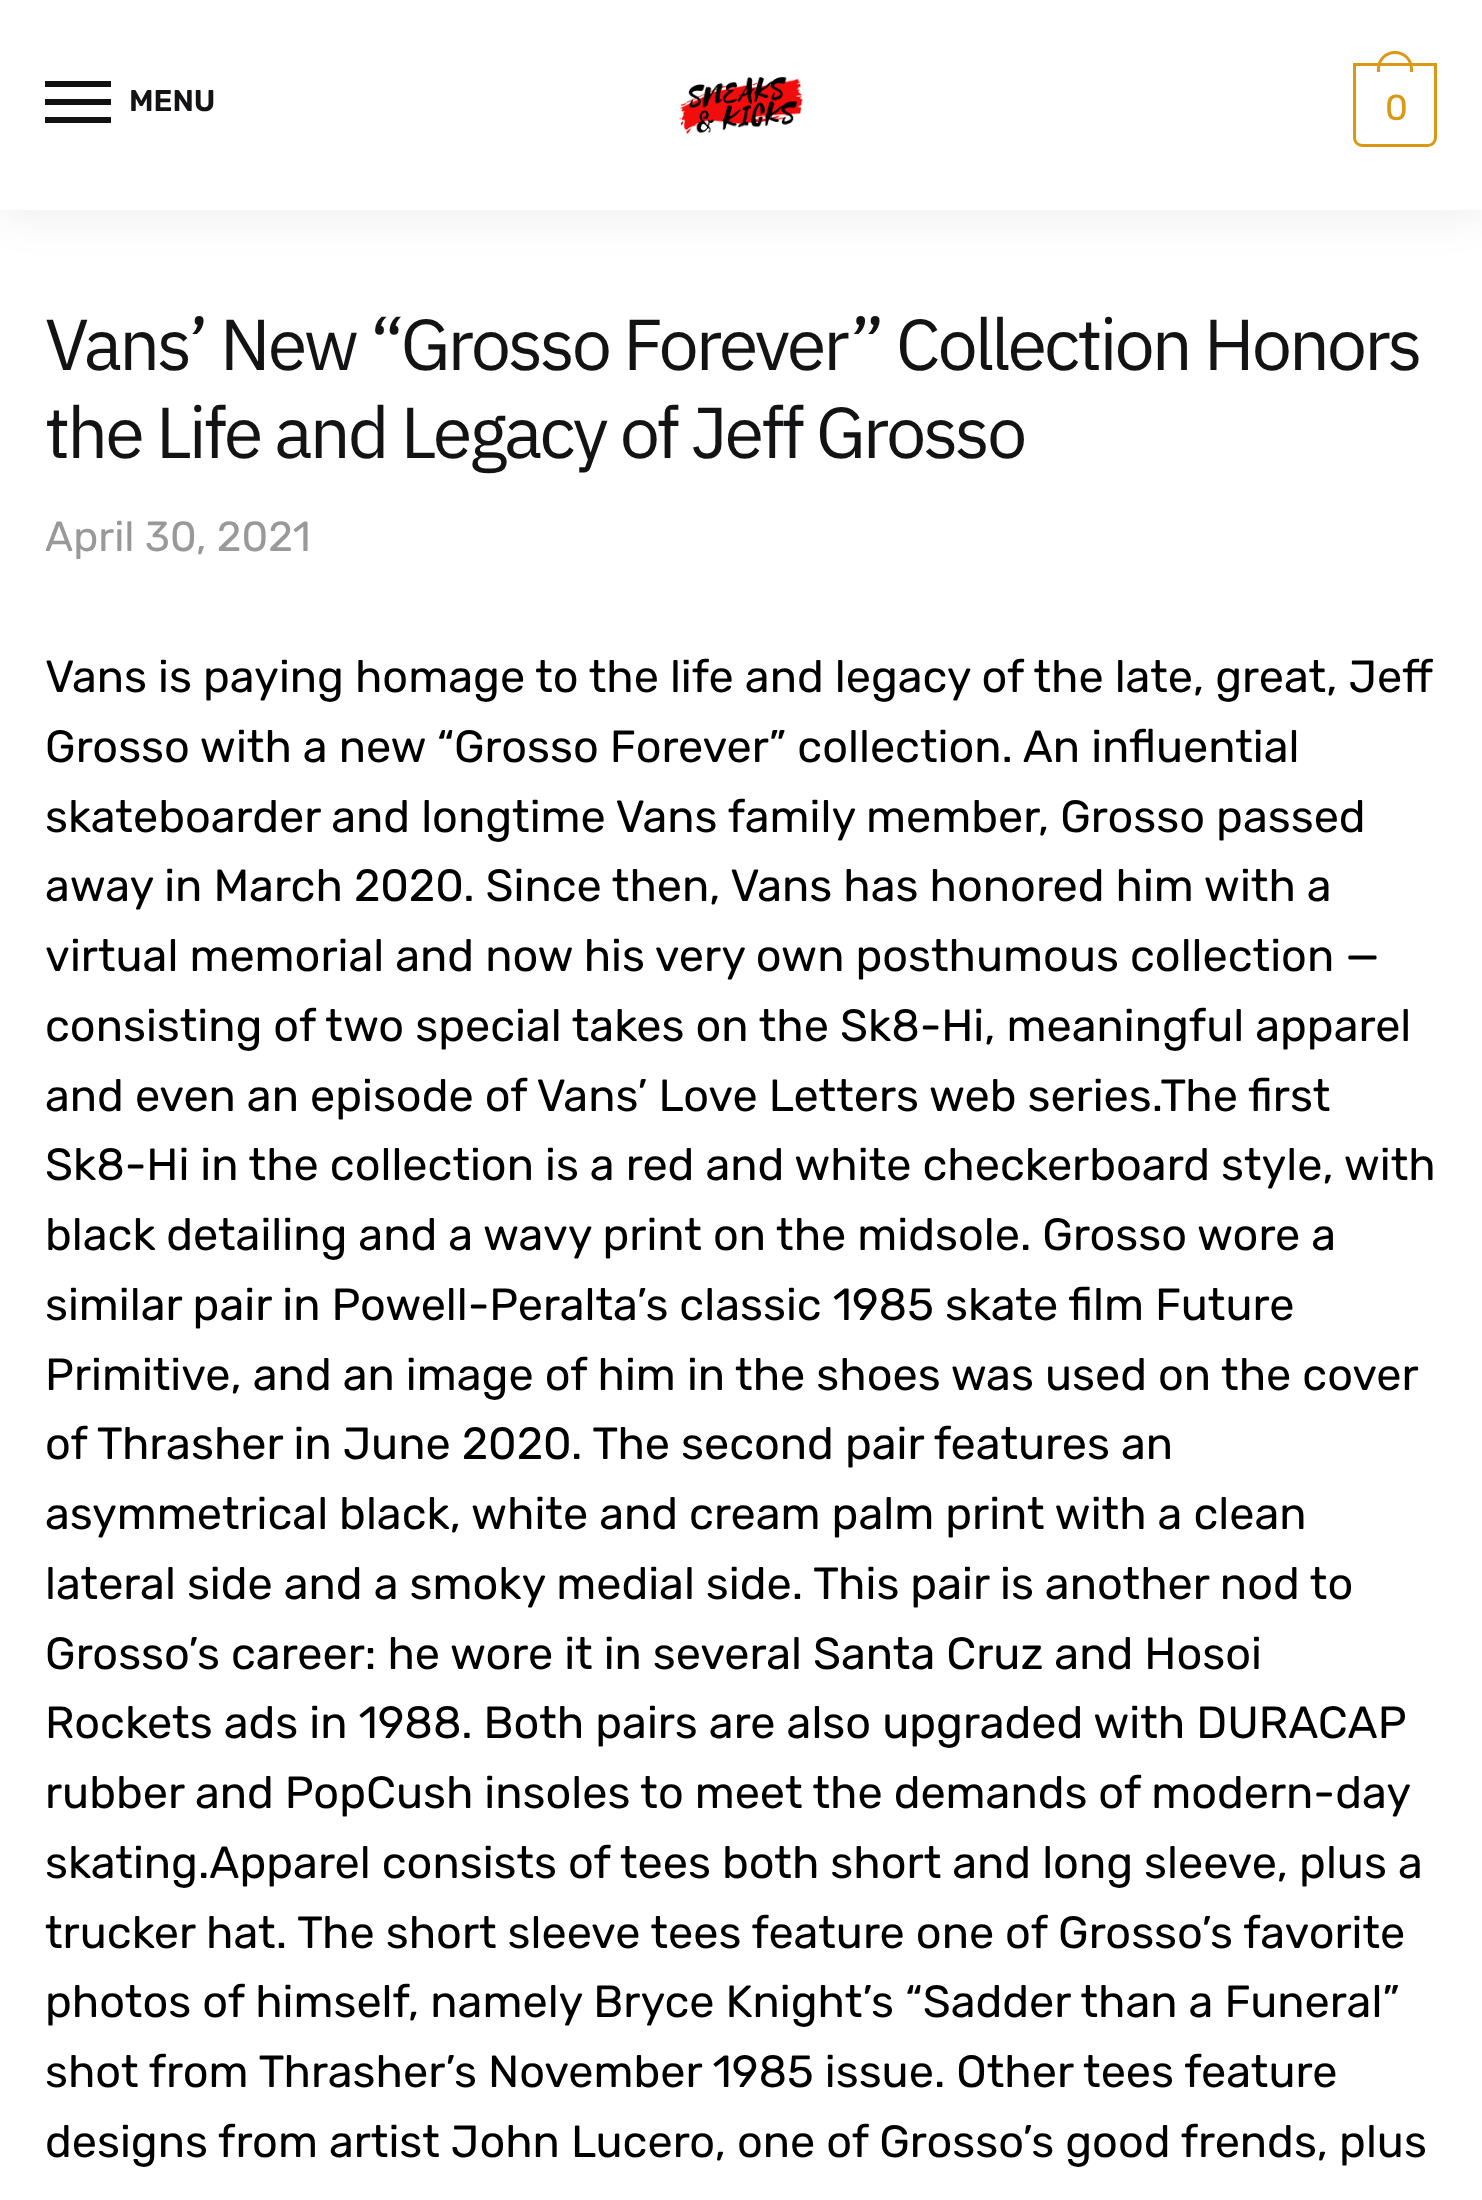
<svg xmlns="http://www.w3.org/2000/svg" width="1482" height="2200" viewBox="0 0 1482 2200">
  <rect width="100%" height="100%" fill="#fff"/>
  <path d="M0 3h1482v210H0z" fill="#00000014" filter="blur(22.5px)"/>
  <path d="M0 0h1482v210H0z" fill="#fff"/>
  <path d="M45 81h66v6H45z" fill="#111"/>
  <path d="M45 99h66v6H45z" fill="#111"/>
  <path d="M45 117h66v6H45z" fill="#111"/>
  <image x="679" y="77" width="125" height="57" href="img/1.png"/>
  <path d="M1354.5 64.5H1435.5V138C1435.5 142 1432 145.5 1428 145.5H1362C1358 145.5 1354.5 142 1354.5 138Z" fill="none" stroke="#dc9814" stroke-width="3"/>
  <path d="M1395 51C1405 51 1413 59 1413 69V72H1377V69C1377 59 1385 51 1395 51ZM1395 54C1403.5 54 1410 60.5 1410 69V72H1380V69C1380 60.5 1386.5 54 1395 54Z" fill="#dc9814" fill-rule="evenodd"/>
  <text x="129" y="111" font-family="Rubik" font-size="30" font-weight="600" fill="#131315">MENU</text>
  <text x="1385" y="120" font-family="Rubik" font-size="36" letter-spacing="-2" fill="#dc9814">0</text>
  <g font-family="IBM Plex Sans" font-size="72" letter-spacing="-3" fill="#131315">
    <text x="45" y="370">Vans’ New “Grosso Forever” Collection Honors</text>
    <text x="45" y="458">the Life and Legacy of Jeff Grosso</text>
  </g>
  <text x="45" y="551" font-family="Rubik" font-size="42" fill="#999">April 30, 2021</text>
  <g font-family="Rubik" font-size="45" fill="#000">
    <text x="45" y="692">Vans is paying homage to the life and legacy of the late, great, Jeff</text>
    <text x="45" y="762">Grosso with a new “Grosso Forever” collection. An influential</text>
    <text x="45" y="832">skateboarder and longtime Vans family member, Grosso passed</text>
    <text x="45" y="901">away in March 2020. Since then, Vans has honored him with a</text>
    <text x="45" y="971">virtual memorial and now his very own posthumous collection —</text>
    <text x="45" y="1041">consisting of two special takes on the Sk8-Hi, meaningful apparel</text>
    <text x="45" y="1111">and even an episode of Vans’ Love Letters web series.The first</text>
    <text x="45" y="1180">Sk8-Hi in the collection is a red and white checkerboard style, with</text>
    <text x="45" y="1250">black detailing and a wavy print on the midsole. Grosso wore a</text>
    <text x="45" y="1320">similar pair in Powell-Peralta’s classic 1985 skate film Future</text>
    <text x="45" y="1390">Primitive, and an image of him in the shoes was used on the cover</text>
    <text x="45" y="1459">of Thrasher in June 2020. The second pair features an</text>
    <text x="45" y="1529">asymmetrical black, white and cream palm print with a clean</text>
    <text x="45" y="1599">lateral side and a smoky medial side. This pair is another nod to</text>
    <text x="45" y="1669">Grosso’s career: he wore it in several Santa Cruz and Hosoi</text>
    <text x="45" y="1738">Rockets ads in 1988. Both pairs are also upgraded with DURACAP</text>
    <text x="45" y="1808" word-spacing="-0.1">rubber and PopCush insoles to meet the demands of modern-day</text>
    <text x="45" y="1878">skating.Apparel consists of tees both short and long sleeve, plus a</text>
    <text x="45" y="1948">trucker hat. The short sleeve tees feature one of Grosso’s favorite</text>
    <text x="45" y="2017">photos of himself, namely Bryce Knight’s “Sadder than a Funeral”</text>
    <text x="45" y="2087">shot from Thrasher’s November 1985 issue. Other tees feature</text>
    <text x="45" y="2157">designs from artist John Lucero, one of Grosso’s good frends, plus</text>
  </g>
</svg>
